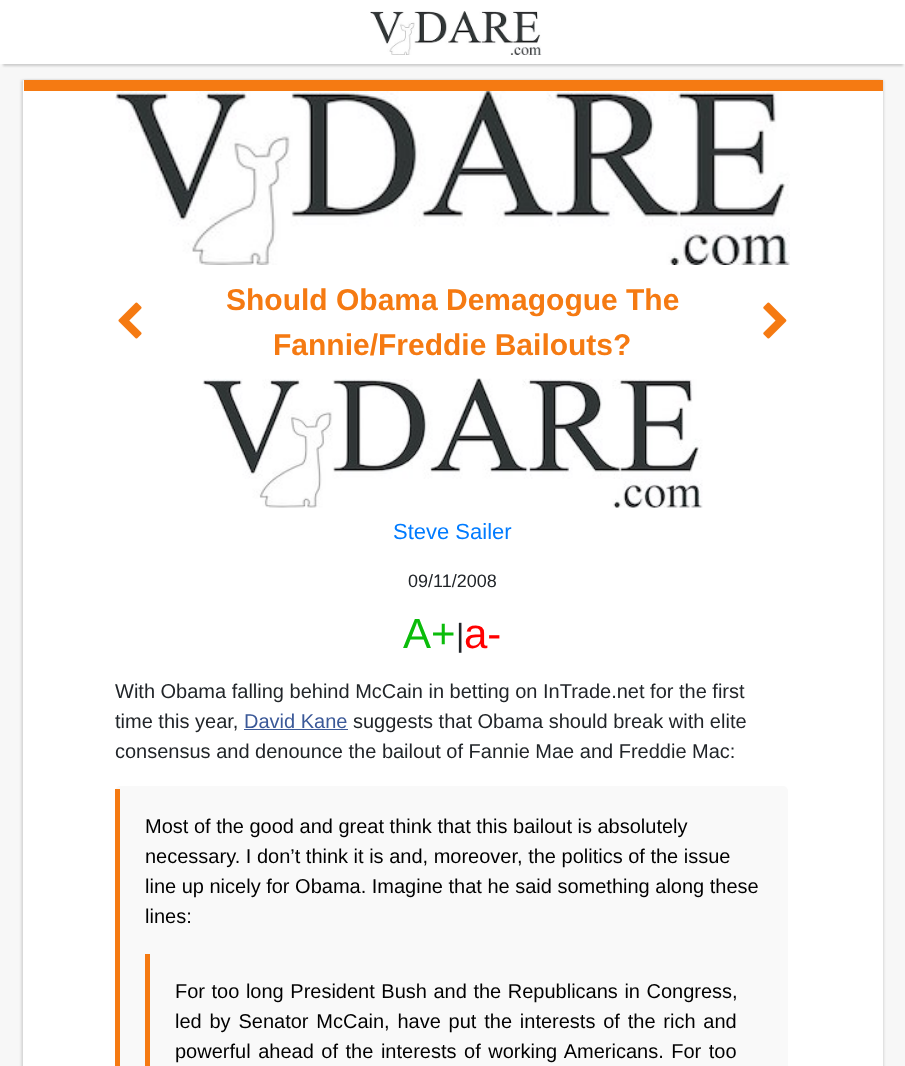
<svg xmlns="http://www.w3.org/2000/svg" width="905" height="1066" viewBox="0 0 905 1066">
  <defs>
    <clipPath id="clip1"><path d="M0 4H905V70H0ZM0 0H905V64H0Z" clip-rule="evenodd"/></clipPath>
  </defs>
  <rect width="100%" height="100%" fill="#f7f7f7"/>
  <path d="M0 0h905v64H0z" fill="#fff"/>
  <g clip-path="url(#clip1)">
    <path d="M3 8h900v58H3z" fill="#ccc" filter="blur(1px)"/>
  </g>
  <image x="370" y="11" width="172" height="44" href="img/1.png"/>
  <rect x="23" y="81" width="860" height="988" rx="1" fill="#0000003d" filter="blur(0.5px)"/>
  <rect x="24" y="80" width="860" height="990" rx="1" fill="#0000001f" filter="blur(1px)"/>
  <rect x="21" y="80" width="860" height="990" rx="1" fill="#0000001f" filter="blur(1px)"/>
  <rect x="23" y="80" width="860" height="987" rx="1" fill="#fff"/>
  <path d="M24 80h859v11H24z" fill="#f57a12"/>
  <image x="115" y="91" width="675" height="174" href="img/2.png"/>
  <image x="118" y="302" width="24" height="37" href="img/3.png"/>
  <image x="763" y="302" width="24" height="37" href="img/4.png"/>
  <image x="202" y="378" width="501" height="130" href="img/5.png"/>
  <path d="M244 729h104v1H244z" fill="#3b5998"/>
  <rect x="115" y="786" width="673" height="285" rx="5" fill="#f9f9f9"/>
  <path d="M115 789h5v277H115z" fill="#f57a12"/>
  <path d="M145 954h5v112H145z" fill="#f57a12"/>
  <g font-family="Liberation Sans" font-size="30" font-weight="bold" fill="#f57a12">
    <text x="226" y="310">Should Obama Demagogue The</text>
    <text x="273" y="355">Fannie/Freddie Bailouts?</text>
  </g>
  <text x="393" y="539" font-family="Liberation Sans" font-size="22" fill="#007bff">Steve Sailer</text>
  <text x="408" y="587" font-family="Liberation Sans" font-size="18" fill="#212529">09/11/2008</text>
  <text x="403" y="648" font-family="Liberation Sans" font-size="42" fill="#0bbc0b">A+</text>
  <text x="456" y="646" font-family="Liberation Sans" font-size="32" fill="#212529">|</text>
  <text x="464" y="648" font-family="Liberation Sans" font-size="42" fill="#f00">a-</text>
  <g font-family="Liberation Sans" font-size="20" fill="#212529">
    <text x="115" y="698">With Obama falling behind McCain in betting on InTrade.net for the first</text>
    <text x="115" y="728">time this year,</text>
  </g>
  <text x="244" y="728" font-family="Liberation Sans" font-size="20" fill="#3b5998">David Kane</text>
  <g font-family="Liberation Sans" font-size="20" fill="#212529">
    <text x="353" y="728">suggests that Obama should break with elite</text>
    <text x="115" y="758">consensus and denounce the bailout of Fannie Mae and Freddie Mac:</text>
  </g>
  <g font-family="Liberation Sans" font-size="20" fill="#000">
    <text x="145" y="833">Most of the good and great think that this bailout is absolutely</text>
    <text x="145" y="863">necessary. I don’t think it is and, moreover, the politics of the issue</text>
    <text x="145" y="893">line up nicely for Obama. Imagine that he said something along these</text>
    <text x="145" y="923">lines:</text>
    <text x="175" y="998" word-spacing="1">For too long President Bush and the Republicans in Congress,</text>
    <text x="175" y="1028" word-spacing="2.25">led by Senator McCain, have put the interests of the rich and</text>
    <text x="175" y="1058" word-spacing="2">powerful ahead of the interests of working Americans. For too</text>
  </g>
</svg>
